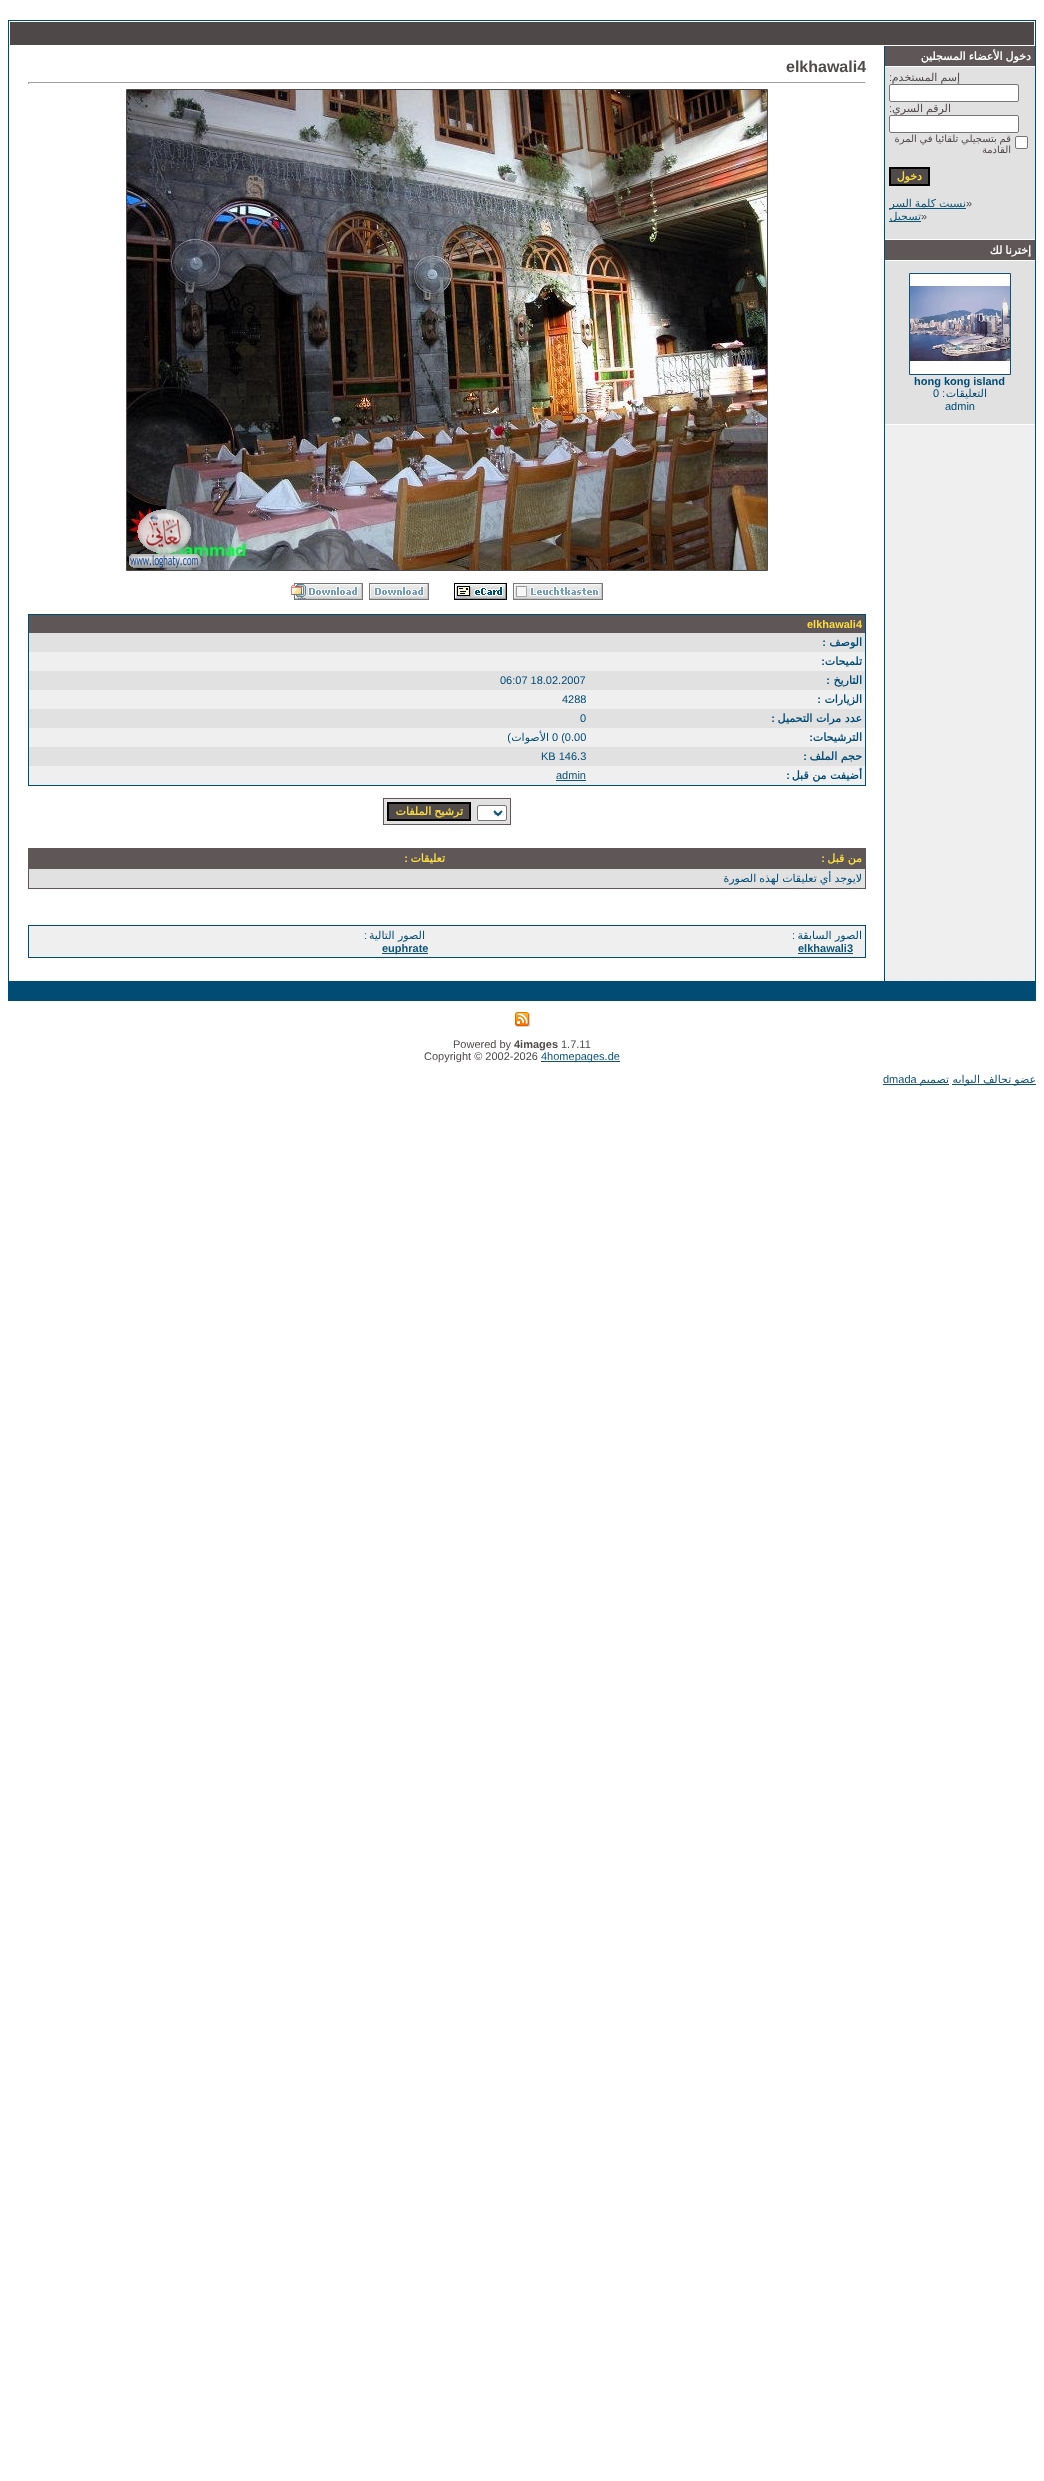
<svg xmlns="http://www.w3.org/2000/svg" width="1044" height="2481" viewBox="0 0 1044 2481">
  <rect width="100%" height="100%" fill="#fff"/>
  <path d="M8 20h1028v981H8z" fill="#004c75"/>
  <path d="M9 21h1026v960H9z" fill="#fff"/>
  <path d="M10 22h1024v23H10z" fill="#4e4848"/>
  <path d="M885 425h150v556H885z" fill="#efefef"/>
  <path d="M885 46h150v20H885z" fill="#5f5757"/>
  <path d="M885 67h150v172H885z" fill="#e1e1e1"/>
  <rect x="889.5" y="84.5" width="129" height="17" rx="1.5" fill="#fff" stroke="#767676"/>
  <rect x="889.5" y="115.5" width="129" height="17" rx="1.5" fill="#fff" stroke="#767676"/>
  <rect x="1015.5" y="136.5" width="12" height="12" rx="1.5" fill="#fff" stroke="#767676"/>
  <path d="M890 168h39v17H890z" fill="#504a4a" stroke="#000" stroke-width="2"/>
  <path d="M889 208h77v1H889z" fill="#0f5475"/>
  <path d="M889 221h32v1H889z" fill="#0f5475"/>
  <path d="M885 240h150v20H885z" fill="#5f5757"/>
  <path d="M885 261h150v163H885z" fill="#e1e1e1"/>
  <path d="M909.5 273.5h101v101H909.5z" fill="none" stroke="#0f5475"/>
  <image x="910" y="274" width="100" height="100" href="img/1.png"/>
  <path d="M884 46h1v935H884z" fill="#004c75"/>
  <path d="M28 82h838v1H28z" fill="#9f9f9f"/>
  <path d="M865 82h1v2H865z" fill="#eee"/>
  <path d="M28 82h1v2H28z" fill="#9f9f9f"/>
  <path d="M126.5 89.5h641v481H126.5z" fill="none" stroke="#504a4a"/>
  <image x="127" y="90" width="640" height="480" href="img/2.png"/>
  <image x="513" y="583" width="90" height="17" href="img/3.png"/>
  <image x="454" y="583" width="53" height="17" href="img/4.png"/>
  <image x="369" y="583" width="60" height="17" href="img/5.png"/>
  <image x="291" y="583" width="72" height="17" href="img/6.png"/>
  <path d="M28 614h838v172H28z" fill="#004c75"/>
  <path d="M29 615h836v18H29z" fill="#5f5757"/>
  <path d="M29 633h836v19H29z" fill="#e1e1e1"/>
  <path d="M29 652h836v19H29z" fill="#efefef"/>
  <path d="M29 671h836v19H29z" fill="#e1e1e1"/>
  <path d="M29 690h836v19H29z" fill="#efefef"/>
  <path d="M29 709h836v19H29z" fill="#e1e1e1"/>
  <path d="M29 728h836v19H29z" fill="#efefef"/>
  <path d="M29 747h836v19H29z" fill="#e1e1e1"/>
  <path d="M29 766h836v19H29z" fill="#efefef"/>
  <path d="M556 780h30v1H556z" fill="#0f5475"/>
  <path d="M383 798h128v27H383z" fill="#5f5757"/>
  <path d="M384 799h126v25H384z" fill="#e1e1e1"/>
  <rect x="477.5" y="805.5" width="29" height="15" rx="1.5" fill="#fff" stroke="#767676"/>
  <path d="M494 811L498 815L502 811" fill="none" stroke="#0f5475" stroke-width="2"/>
  <path d="M388 803h82v17H388z" fill="#504a4a" stroke="#000" stroke-width="2"/>
  <path d="M28 848h838v41H28z" fill="#5f5757"/>
  <path d="M29 869h836v19H29z" fill="#e1e1e1"/>
  <path d="M28 925h838v33H28z" fill="#004c75"/>
  <path d="M29 926h836v31H29z" fill="#efefef"/>
  <path d="M798 953h55v1H798z" fill="#0f5475"/>
  <path d="M382 953h46v1H382z" fill="#0f5475"/>
  <image x="515" y="1012" width="15" height="15" href="img/7.png"/>
  <path d="M541 1061h79v1H541z" fill="#0f5475"/>
  <path d="M952 1084h84v1H952z" fill="#0f5475"/>
  <path d="M883 1084h66v1H883z" fill="#0f5475"/>
  <text x="1031" y="60" word-spacing="-0.5" font-family="DejaVu Sans" font-size="11" font-weight="bold" direction="rtl" fill="#fff">دخول الأعضاء المسجلين</text>
  <text x="960" y="81" word-spacing="-0.5" font-family="DejaVu Sans" font-size="11" direction="rtl" fill="#504a4a">إسم المستخدم</text>
  <text x="892" y="81" font-family="Liberation Sans" font-size="11" direction="rtl" fill="#504a4a">:</text>
  <text x="951" y="112" word-spacing="-0.5" font-family="DejaVu Sans" font-size="11" direction="rtl" fill="#504a4a">الرقم السري</text>
  <text x="892" y="112" font-family="Liberation Sans" font-size="11" direction="rtl" fill="#504a4a">:</text>
  <g font-family="DejaVu Sans" font-size="10" direction="rtl" fill="#504a4a">
    <text x="1011" y="142" word-spacing="-0.5">قم بتسجيلي تلقائيا في المرة</text>
    <text x="1011" y="153">القادمة</text>
  </g>
  <text x="922" y="180" font-family="DejaVu Sans" font-size="11" font-weight="bold" direction="rtl" fill="#fcdc43">دخول</text>
  <text x="966" y="207" font-family="Liberation Sans" font-size="11" fill="#504a4a">»</text>
  <text x="966" y="207" word-spacing="-0.5" font-family="DejaVu Sans" font-size="11" direction="rtl" fill="#0f5475">نسيت كلمة السر</text>
  <text x="921" y="220" font-family="Liberation Sans" font-size="11" fill="#504a4a">»</text>
  <text x="921" y="220" font-family="DejaVu Sans" font-size="11" direction="rtl" fill="#0f5475">تسجيل</text>
  <text x="1031" y="254" word-spacing="-0.5" font-family="DejaVu Sans" font-size="11" font-weight="bold" direction="rtl" fill="#fff">إخترنا لك</text>
  <text x="914" y="385" font-family="Liberation Sans" font-size="11" font-weight="bold" fill="#004c75">hong kong island</text>
  <text x="987" y="397" font-family="DejaVu Sans" font-size="11" direction="rtl" fill="#004c75">التعليقات</text>
  <text x="945" y="397" font-family="Liberation Sans" font-size="11" direction="rtl" fill="#004c75">:</text>
  <g font-family="Liberation Sans" font-size="11" fill="#004c75">
    <text x="933" y="397">0</text>
    <text x="945" y="410">admin</text>
  </g>
  <text x="786" y="72" font-family="Liberation Sans" font-size="16" font-weight="bold" fill="#504a4a">elkhawali4</text>
  <text x="807" y="628" font-family="Liberation Sans" font-size="11" font-weight="bold" fill="#fcdc43">elkhawali4</text>
  <text x="862" y="646" font-family="DejaVu Sans" font-size="11" font-weight="bold" direction="rtl" fill="#004c75">الوصف</text>
  <text x="826" y="646" font-family="Liberation Sans" font-size="11" font-weight="bold" direction="rtl" fill="#004c75">:</text>
  <text x="862" y="665" font-family="DejaVu Sans" font-size="11" font-weight="bold" direction="rtl" fill="#004c75">تلميحات</text>
  <text x="825" y="665" font-family="Liberation Sans" font-size="11" font-weight="bold" direction="rtl" fill="#004c75">:</text>
  <text x="862" y="684" font-family="DejaVu Sans" font-size="11" font-weight="bold" direction="rtl" fill="#004c75">التاريخ</text>
  <text x="830" y="684" font-family="Liberation Sans" font-size="11" font-weight="bold" direction="rtl" fill="#004c75">:</text>
  <text x="500" y="684" font-family="Liberation Sans" font-size="11" fill="#004c75">06:07 18.02.2007</text>
  <text x="862" y="703" font-family="DejaVu Sans" font-size="11" font-weight="bold" direction="rtl" fill="#004c75">الزيارات</text>
  <text x="821" y="703" font-family="Liberation Sans" font-size="11" font-weight="bold" direction="rtl" fill="#004c75">:</text>
  <text x="562" y="703" font-family="Liberation Sans" font-size="11" fill="#004c75">4288</text>
  <text x="862" y="722" font-family="DejaVu Sans" font-size="11" font-weight="bold" direction="rtl" fill="#004c75">عدد مرات التحميل</text>
  <text x="775" y="722" font-family="Liberation Sans" font-size="11" font-weight="bold" direction="rtl" fill="#004c75">:</text>
  <text x="580" y="722" font-family="Liberation Sans" font-size="11" fill="#004c75">0</text>
  <text x="862" y="741" font-family="DejaVu Sans" font-size="11" font-weight="bold" direction="rtl" fill="#004c75">الترشيحات</text>
  <text x="813" y="741" font-family="Liberation Sans" font-size="11" font-weight="bold" direction="rtl" fill="#004c75">:</text>
  <text x="552" y="741" font-family="Liberation Sans" font-size="11" fill="#004c75">0 (0.00</text>
  <text x="549" y="741" font-family="DejaVu Sans" font-size="11" direction="rtl" fill="#004c75">الأصوات</text>
  <text x="511" y="741" font-family="Liberation Sans" font-size="11" direction="rtl" fill="#004c75">)</text>
  <text x="862" y="760" font-family="DejaVu Sans" font-size="11" font-weight="bold" direction="rtl" fill="#004c75">حجم الملف</text>
  <text x="807" y="760" font-family="Liberation Sans" font-size="11" font-weight="bold" direction="rtl" fill="#004c75">:</text>
  <text x="541" y="760" font-family="Liberation Sans" font-size="11" fill="#004c75">KB 146.3</text>
  <text x="862" y="779" font-family="DejaVu Sans" font-size="11" font-weight="bold" direction="rtl" fill="#004c75">أضيفت من قبل</text>
  <text x="790" y="779" font-family="Liberation Sans" font-size="11" font-weight="bold" direction="rtl" fill="#004c75">:</text>
  <g font-family="Liberation Sans" font-size="11" fill="#0f5475">
    <text x="556" y="779">admin</text>
    <text x="494" y="817">--</text>
  </g>
  <g font-family="DejaVu Sans" font-size="11" font-weight="bold" direction="rtl" fill="#fcdc43">
    <text x="463" y="815" word-spacing="-0.5">ترشيح الملفات</text>
    <text x="862" y="862">من قبل</text>
  </g>
  <text x="825" y="862" font-family="Liberation Sans" font-size="11" font-weight="bold" direction="rtl" fill="#fcdc43">:</text>
  <text x="445" y="862" font-family="DejaVu Sans" font-size="11" font-weight="bold" direction="rtl" fill="#fcdc43">تعليقات</text>
  <text x="408" y="862" font-family="Liberation Sans" font-size="11" font-weight="bold" direction="rtl" fill="#fcdc43">:</text>
  <g font-family="DejaVu Sans" font-size="11" direction="rtl" fill="#004c75">
    <text x="862" y="882" word-spacing="-0.5">لايوجد أي تعليقات لهذه الصورة</text>
    <text x="862" y="939">الصور السابقة</text>
  </g>
  <text x="795" y="939" font-family="Liberation Sans" font-size="11" direction="rtl" fill="#004c75">:</text>
  <text x="798" y="952" font-family="Liberation Sans" font-size="11" font-weight="bold" fill="#0f5475">elkhawali3</text>
  <text x="425" y="939" font-family="DejaVu Sans" font-size="11" direction="rtl" fill="#004c75">الصور التالية</text>
  <text x="367" y="939" font-family="Liberation Sans" font-size="11" direction="rtl" fill="#004c75">:</text>
  <text x="382" y="952" font-family="Liberation Sans" font-size="11" font-weight="bold" fill="#0f5475">euphrate</text>
  <text x="561" y="1048" font-family="Liberation Sans" font-size="11" fill="#504a4a">1.7.11</text>
  <text x="514" y="1048" font-family="Liberation Sans" font-size="11" font-weight="bold" fill="#504a4a">4images</text>
  <text x="453" y="1048" font-family="Liberation Sans" font-size="11" fill="#504a4a">Powered by</text>
  <text x="541" y="1060" font-family="Liberation Sans" font-size="11" fill="#0f5475">4homepages.de</text>
  <text x="424" y="1060" font-family="Liberation Sans" font-size="11" fill="#504a4a">Copyright © 2002-2026</text>
  <g font-family="DejaVu Sans" font-size="11" direction="rtl" fill="#0f5475">
    <text x="1036" y="1083" word-spacing="-0.5">عضو تحالف البوابه</text>
    <text x="949" y="1083">تصميم</text>
  </g>
  <text x="883" y="1083" font-family="Liberation Sans" font-size="11" fill="#0f5475">dmada</text>
</svg>
